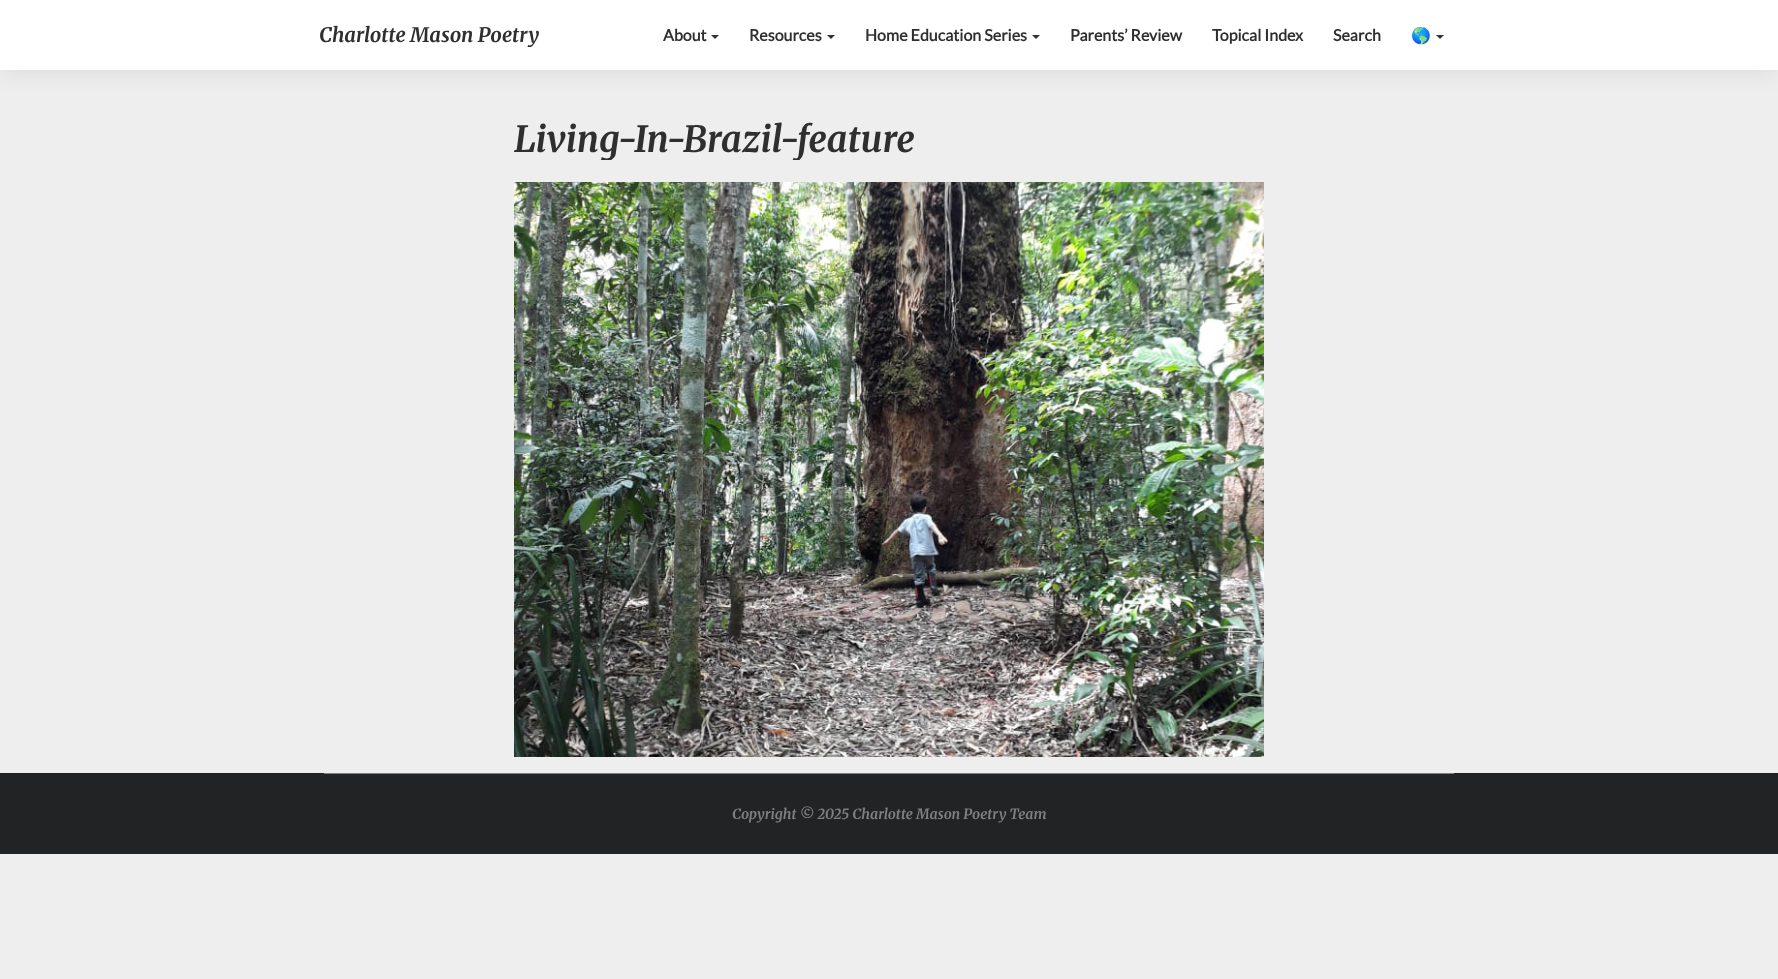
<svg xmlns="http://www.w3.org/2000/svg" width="1778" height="979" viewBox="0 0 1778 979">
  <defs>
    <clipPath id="clip1"><path d="M514 120h750v40H514z"/></clipPath>
  </defs>
  <rect width="100%" height="100%" fill="#eee"/>
  <path d="M0 2h1778v70H0z" fill="#00000014" filter="blur(12.5px)"/>
  <path d="M0 0h1778v70H0z" fill="#fff"/>
  <path d="M711 35H719L715 39Z" fill="#333"/>
  <path d="M827 35H835L831 39Z" fill="#333"/>
  <path d="M1032 35H1040L1036 39Z" fill="#333"/>
  <path d="M1436 35H1444L1440 39Z" fill="#333"/>
  <image x="514" y="182" width="750" height="575" href="img/1.png"/>
  <path d="M0 773h1778v81H0z" fill="#212324"/>
  <path d="M324 773h1130v1H324z" fill="#7f7f7f"/>
  <text x="319" y="42" font-family="Merriweather" font-size="20" font-weight="300" font-style="italic" fill="#2f2f2f">Charlotte Mason Poetry</text>
  <g font-family="Lato" font-size="16" font-weight="bold" fill="#2f2f2f">
    <text x="663" y="41">About</text>
    <text x="749" y="41">Resources</text>
    <text x="865" y="41">Home Education Series</text>
    <text x="1070" y="41">Parents’ Review</text>
    <text x="1212" y="41">Topical Index</text>
    <text x="1333" y="41">Search</text>
  </g>
  <text x="1411" y="41" font-family="Noto Color Emoji" font-size="16" font-weight="bold" fill="#2f2f2f">🌎</text>
  <g clip-path="url(#clip1)">
    <text x="514" y="152" font-family="Merriweather" font-size="36" font-weight="300" font-style="italic" fill="#2f2f2f">Living-In-Brazil-feature</text>
  </g>
  <text x="732" y="819" font-family="Merriweather" font-size="14" font-weight="300" font-style="italic" fill="#7f7f7f">Copyright © 2025 Charlotte Mason Poetry Team</text>
</svg>
